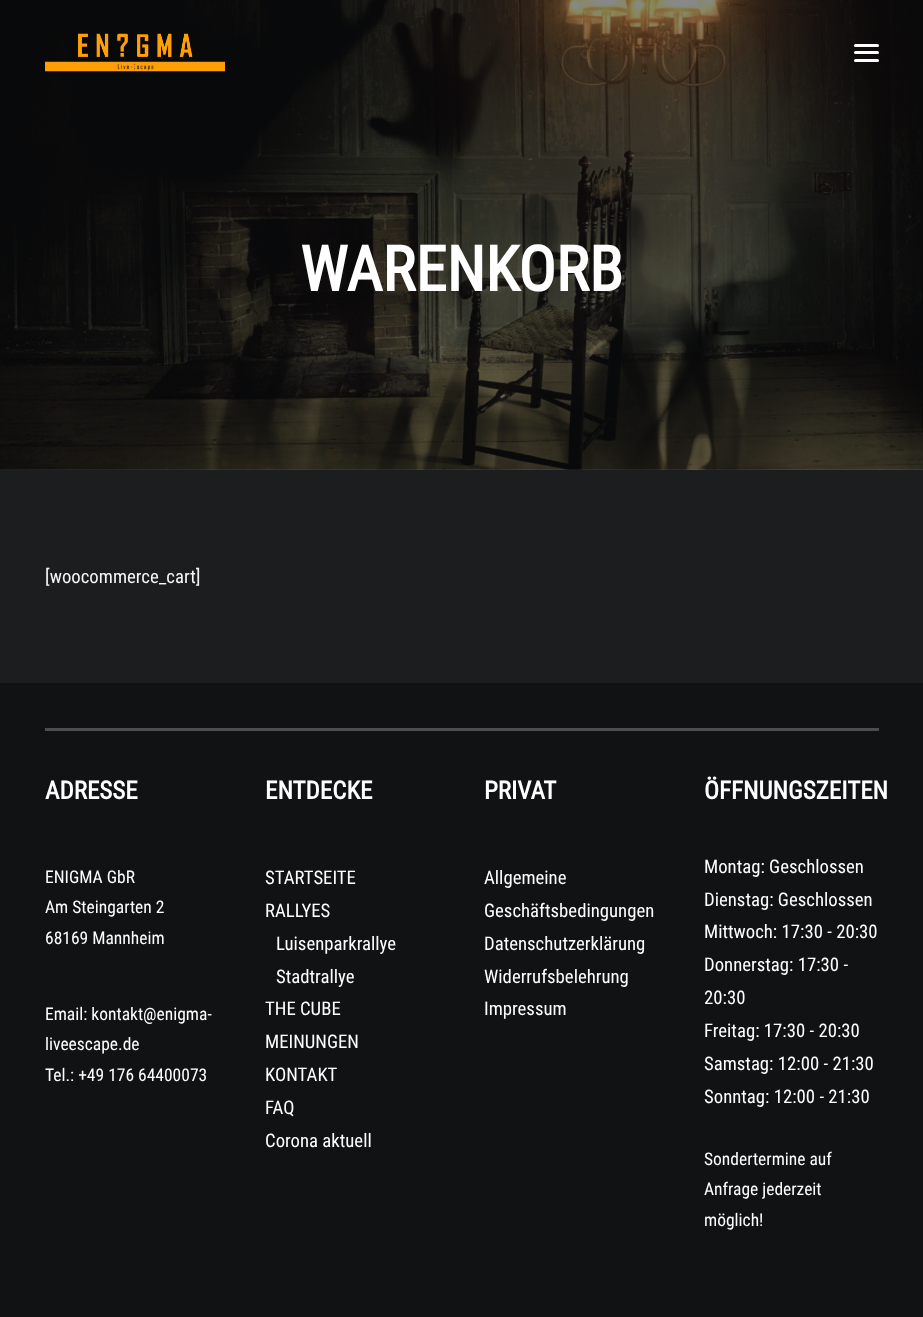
<svg xmlns="http://www.w3.org/2000/svg" width="923" height="1317" viewBox="0 0 923 1317">
  <rect width="100%" height="100%" fill="#fff"/>
  <image x="0" y="0" width="923" height="470" href="img/2.png"/>
  <image x="45" y="33" width="180" height="39" href="img/1.png"/>
  <rect x="854" y="51" width="25" height="3" rx="1.5" fill="#fff"/>
  <rect x="854" y="44" width="25" height="3" rx="1.5" fill="#fff"/>
  <rect x="854" y="59" width="25" height="3" rx="1.5" fill="#fff"/>
  <path d="M0 470h923v213H0z" fill="#1b1d1f"/>
  <path d="M0 683h923v634H0z" fill="#101213"/>
  <path d="M45 728h834v3H45z" fill="#4c4d4e"/>
  <text x="300" y="291" font-family="Roboto Condensed" font-size="62.5" font-weight="bold" fill="#fff">WARENKORB</text>
  <text x="45" y="583" font-family="Roboto Condensed" font-size="18.75" fill="#f7f7f7">[woocommerce_cart]</text>
  <text x="45" y="799" font-family="Roboto Condensed" font-size="25" font-weight="bold" fill="#fff">ADRESSE</text>
  <g font-family="Roboto Condensed" font-size="17.5" fill="#fff">
    <text x="45" y="883">ENIGMA GbR</text>
    <text x="45" y="913">Am Steingarten 2</text>
    <text x="45" y="944">68169 Mannheim</text>
    <text x="45" y="1020">Email: kontakt@enigma-</text>
    <text x="45" y="1050">liveescape.de</text>
    <text x="45" y="1081">Tel.: +49 176 64400073</text>
  </g>
  <text x="265" y="799" font-family="Roboto Condensed" font-size="25" font-weight="bold" fill="#fff">ENTDECKE</text>
  <g font-family="Roboto Condensed" font-size="18.75" fill="#fff">
    <text x="265" y="884">STARTSEITE</text>
    <text x="265" y="917">RALLYES</text>
    <text x="276" y="950">Luisenparkrallye</text>
    <text x="276" y="983">Stadtrallye</text>
    <text x="265" y="1015">THE CUBE</text>
    <text x="265" y="1048">MEINUNGEN</text>
    <text x="265" y="1081">KONTAKT</text>
    <text x="265" y="1114">FAQ</text>
    <text x="265" y="1147">Corona aktuell</text>
  </g>
  <text x="484" y="799" font-family="Roboto Condensed" font-size="25" font-weight="bold" fill="#fff">PRIVAT</text>
  <g font-family="Roboto Condensed" font-size="18.75" fill="#fff">
    <text x="484" y="884">Allgemeine</text>
    <text x="484" y="917">Geschäftsbedingungen</text>
    <text x="484" y="950">Datenschutzerklärung</text>
    <text x="484" y="983">Widerrufsbelehrung</text>
    <text x="484" y="1015">Impressum</text>
  </g>
  <text x="704" y="799" font-family="Roboto Condensed" font-size="25" font-weight="bold" fill="#fff">ÖFFNUNGSZEITEN</text>
  <g font-family="Roboto Condensed" font-size="18.75" fill="#fff">
    <text x="704" y="873">Montag: Geschlossen</text>
    <text x="704" y="906">Dienstag: Geschlossen</text>
    <text x="704" y="938">Mittwoch: 17:30 - 20:30</text>
    <text x="704" y="971">Donnerstag: 17:30 -</text>
    <text x="704" y="1004">20:30</text>
    <text x="704" y="1037">Freitag: 17:30 - 20:30</text>
    <text x="704" y="1070">Samstag: 12:00 - 21:30</text>
    <text x="704" y="1103">Sonntag: 12:00 - 21:30</text>
  </g>
  <g font-family="Roboto Condensed" font-size="17.5" fill="#fff">
    <text x="704" y="1165">Sondertermine auf</text>
    <text x="704" y="1195">Anfrage jederzeit</text>
    <text x="704" y="1226">möglich!</text>
  </g>
</svg>
